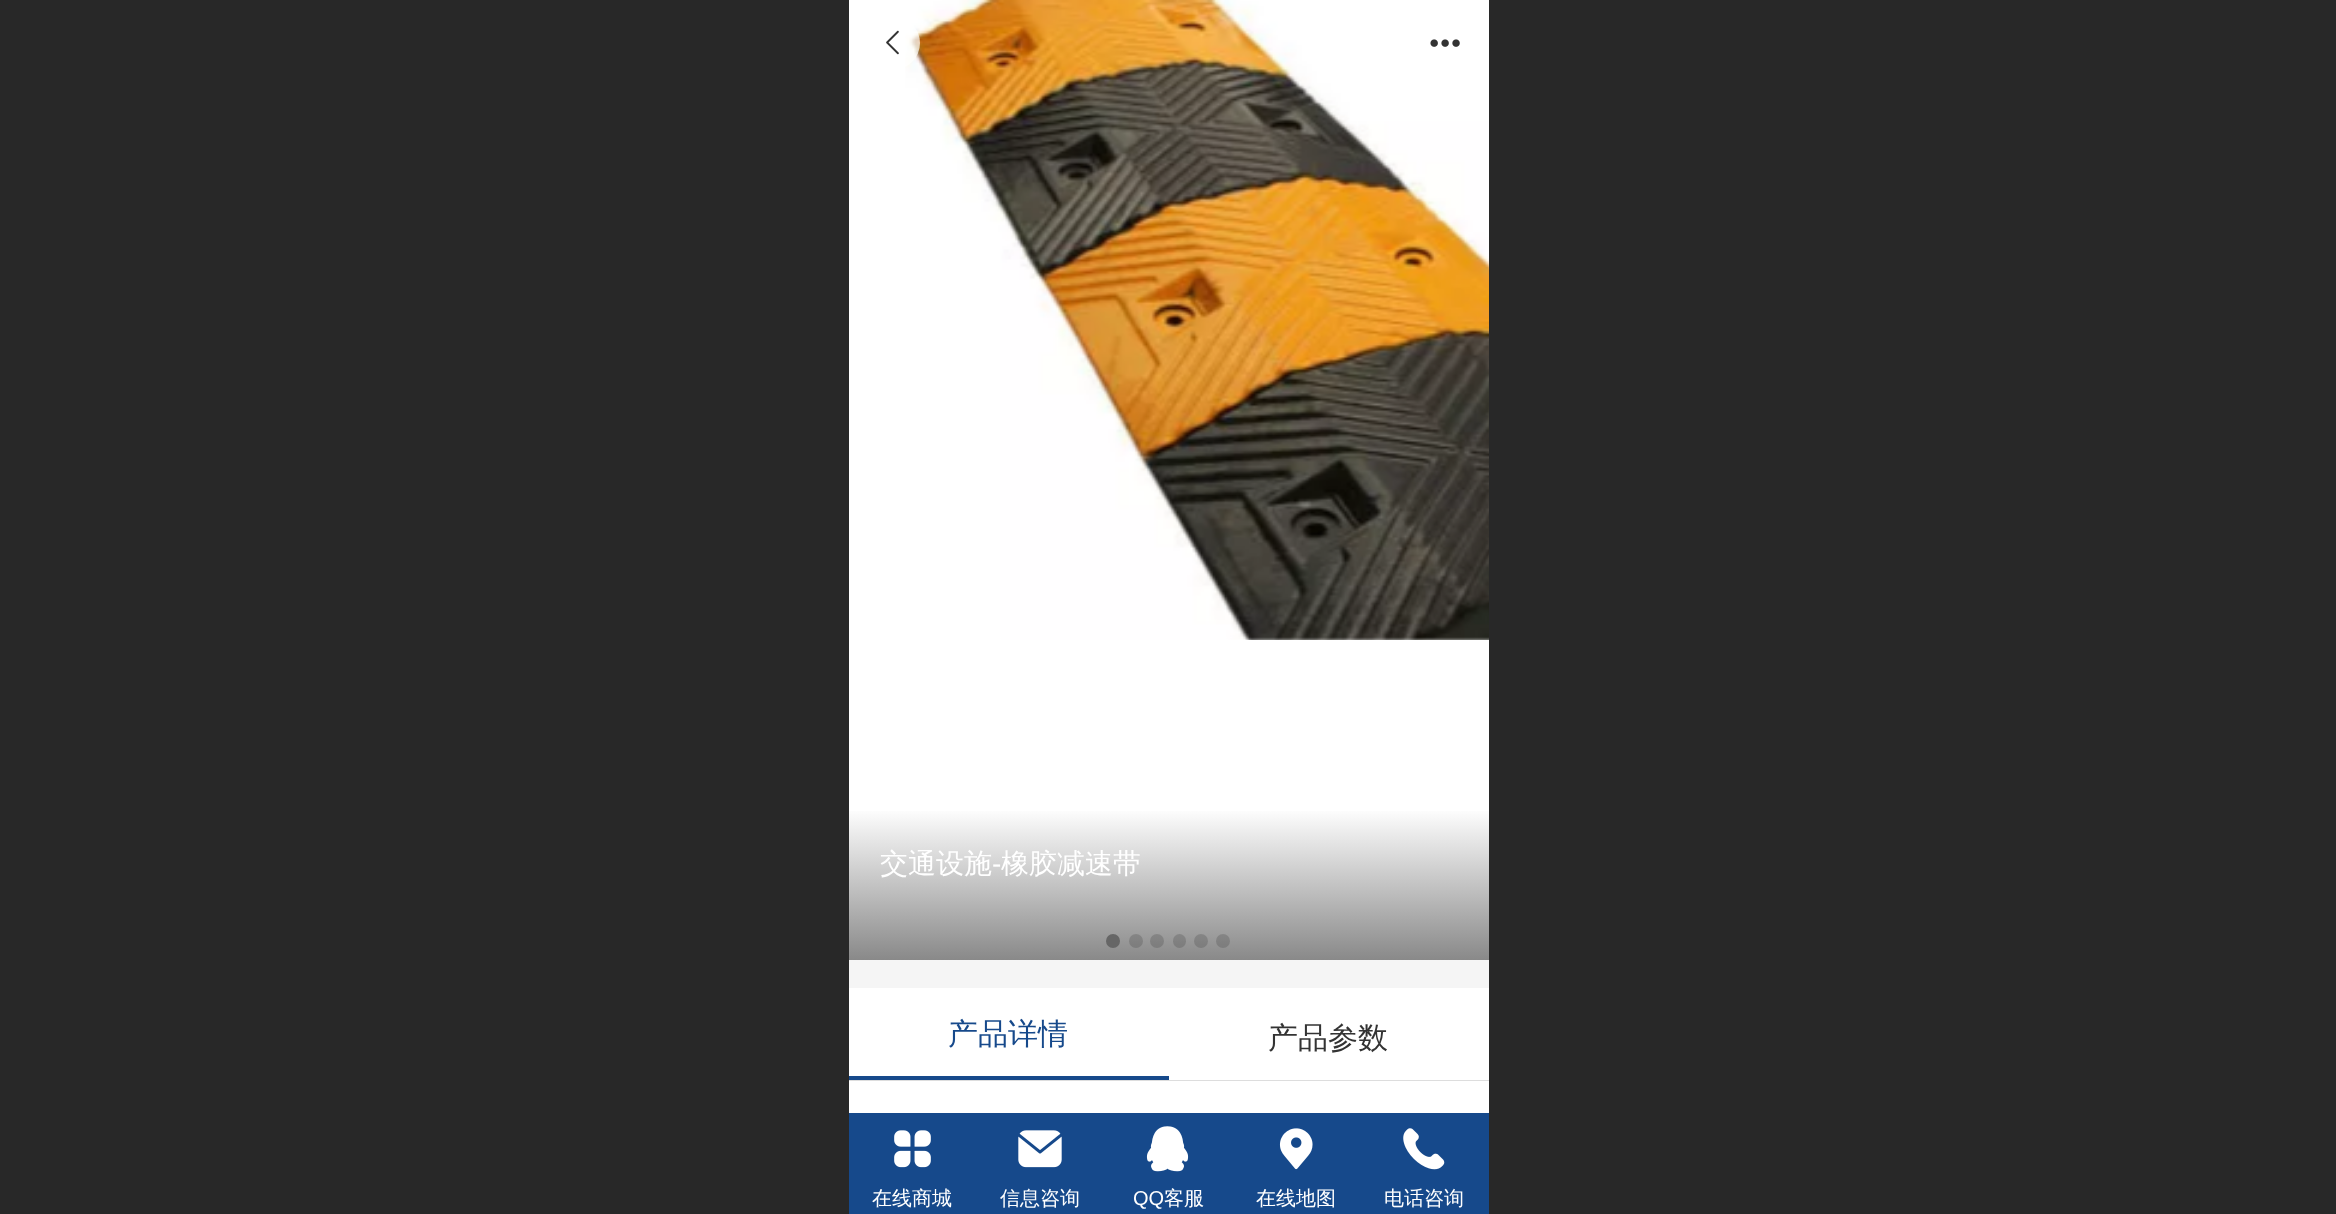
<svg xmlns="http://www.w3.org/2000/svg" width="2336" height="1214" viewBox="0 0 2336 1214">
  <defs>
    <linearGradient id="g1" gradientUnits="userSpaceOnUse" x1="1169" y1="808" x2="1169" y2="960"><stop offset="0" stop-color="#fff"/><stop offset="1" stop-color="#898989"/></linearGradient>
  </defs>
  <rect width="100%" height="100%" fill="#fff"/>
  <path d="M0 0h849v1214H0z" fill="#282828"/>
  <image x="905" y="0" width="584" height="640" href="img/3.png"/>
  <circle cx="893" cy="43" r="27" fill="#ffffffb3"/>
  <image x="886" y="30" width="13" height="25" href="img/1.png"/>
  <image x="1430" y="39" width="30" height="8" href="img/2.png"/>
  <path d="M849 811h640v149H849z" fill="url(#g1)"/>
  <circle cx="1113" cy="941" r="7" fill="#666"/>
  <circle cx="1136" cy="941" r="7" fill="#00000026"/>
  <circle cx="1157" cy="941" r="7" fill="#00000026"/>
  <rect x="1173" y="934" width="13" height="14" rx="6.5" fill="#00000026"/>
  <circle cx="1201" cy="941" r="7" fill="#00000026"/>
  <circle cx="1223" cy="941" r="7" fill="#00000026"/>
  <path d="M849 960h640v28H849z" fill="#f5f5f5"/>
  <path d="M849 1080h640v1H849z" fill="#ddd"/>
  <path d="M849 1076h320v4H849z" fill="#16498b"/>
  <path d="M849 1113h640v101H849z" fill="#16498b"/>
  <image x="894" y="1130" width="37" height="38" href="img/4.png"/>
  <image x="1018" y="1130" width="44" height="38" href="img/5.png"/>
  <image x="1146" y="1126" width="43" height="46" href="img/6.png"/>
  <image x="1279" y="1128" width="34" height="42" href="img/7.png"/>
  <image x="1403" y="1128" width="42" height="42" href="img/8.png"/>
  <path d="M1489 0h847v1214H1489z" fill="#282828"/>
  <text x="880" y="873" font-family="WenQuanYi Zen Hei" font-size="28" font-weight="500" fill="#fff">交通设施</text>
  <text x="992" y="873" font-family="Liberation Sans" font-size="28" fill="#fff">-</text>
  <text x="1001" y="873" font-family="WenQuanYi Zen Hei" font-size="28" font-weight="500" fill="#fff">橡胶减速带</text>
  <text x="948" y="1044" font-family="WenQuanYi Zen Hei" font-size="30" font-weight="500" fill="#16498b">产品详情</text>
  <text x="1268" y="1048" font-family="WenQuanYi Zen Hei" font-size="30" font-weight="500" fill="#333">产品参数</text>
  <g font-family="WenQuanYi Zen Hei" font-size="20" font-weight="500" fill="#fff">
    <text x="872" y="1205">在线商城</text>
    <text x="1000" y="1205">信息咨询</text>
  </g>
  <text x="1133" y="1205" font-family="Liberation Sans" font-size="20" fill="#fff">QQ</text>
  <g font-family="WenQuanYi Zen Hei" font-size="20" font-weight="500" fill="#fff">
    <text x="1164" y="1205">客服</text>
    <text x="1256" y="1205">在线地图</text>
    <text x="1384" y="1205">电话咨询</text>
  </g>
</svg>
